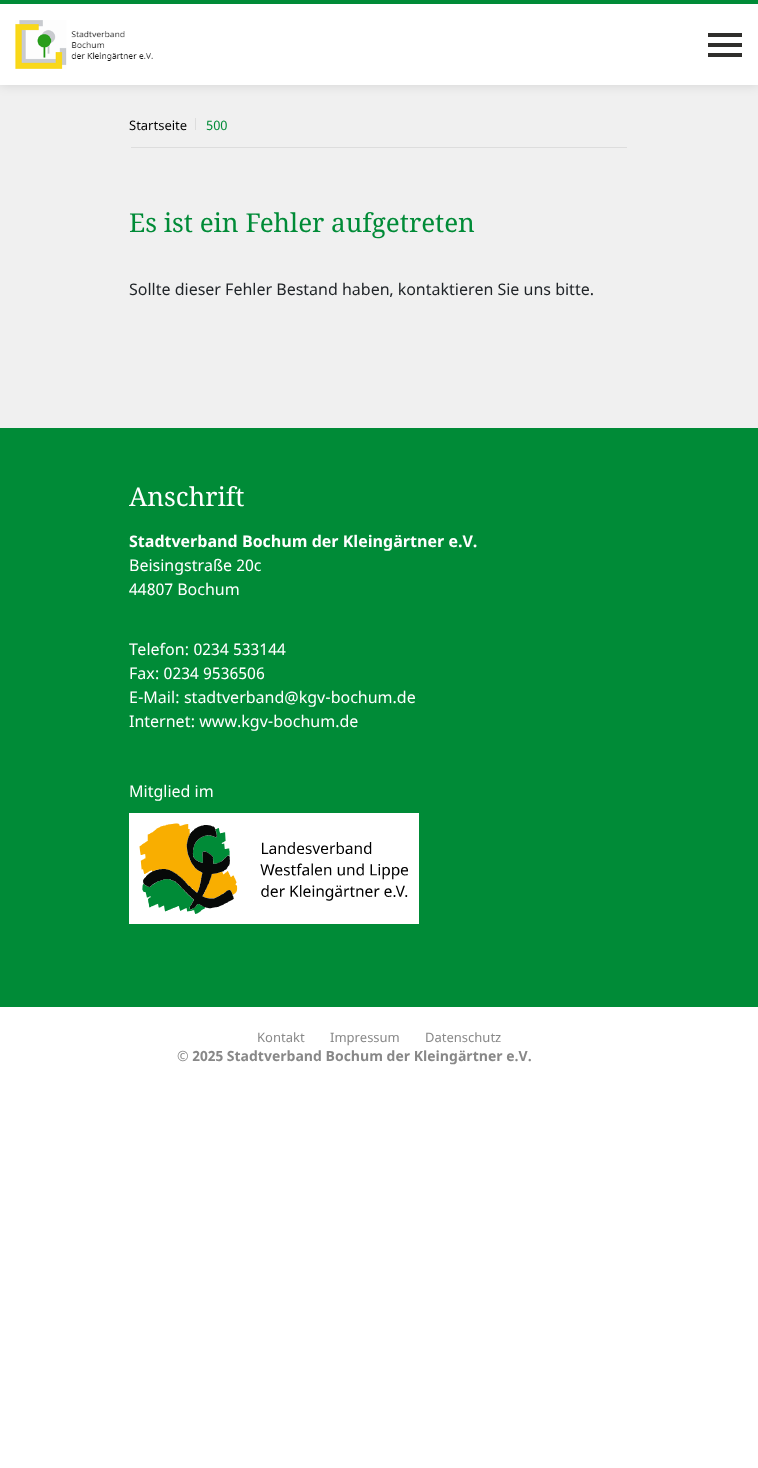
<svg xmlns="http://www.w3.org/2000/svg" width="758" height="1468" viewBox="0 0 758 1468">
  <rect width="100%" height="100%" fill="#fff"/>
  <path d="M0 85h758v343H0z" fill="#f0f0f0"/>
  <path d="M0 0h758v85H0z" fill="#0000001f" filter="blur(6px)"/>
  <path d="M0 4h758v81H0z" fill="#fff"/>
  <path d="M0 0h758v4H0z" fill="#008b37"/>
  <image x="15" y="20" width="138" height="49" href="img/1.png"/>
  <path d="M708 43h34v4H708z" fill="#2f2e2c"/>
  <path d="M708 33h34v4H708z" fill="#2f2e2c"/>
  <path d="M708 53h34v4H708z" fill="#2f2e2c"/>
  <path d="M131 147h496v1H131z" fill="#ddd"/>
  <path d="M195 118h1v12H195z" fill="#ddd"/>
  <path d="M0 428h758v579H0z" fill="#008b37"/>
  <path d="M129 813h290v111H129z" fill="#fff"/>
  <image x="139" y="823" width="269" height="91" href="img/2.png"/>
  <text x="129" y="130" font-family="Noto Sans" font-size="13" fill="#000">Startseite</text>
  <text x="206" y="130" font-family="Noto Sans" font-size="13" fill="#008b37">500</text>
  <text x="129" y="232" font-family="Noto Serif" font-size="26" fill="#008b37">Es ist ein Fehler aufgetreten</text>
  <text x="129" y="295" font-family="Noto Sans" font-size="16" fill="#212529">Sollte dieser Fehler Bestand haben, kontaktieren Sie uns bitte.</text>
  <text x="129" y="506" font-family="Noto Serif" font-size="26" fill="#fff">Anschrift</text>
  <text x="129" y="547" font-family="Noto Sans" font-size="16" font-weight="bold" fill="#fff">Stadtverband Bochum der Kleingärtner e.V.</text>
  <g font-family="Noto Sans" font-size="16" fill="#fff">
    <text x="129" y="571">Beisingstraße 20c</text>
    <text x="129" y="595">44807 Bochum</text>
    <text x="129" y="655">Telefon: 0234 533144</text>
    <text x="129" y="679">Fax: 0234 9536506</text>
    <text x="129" y="703">E-Mail: stadtverband@kgv-bochum.de</text>
    <text x="129" y="727">Internet: www.kgv-bochum.de</text>
    <text x="129" y="797">Mitglied im</text>
  </g>
  <g font-family="Noto Sans" font-size="13" fill="#888">
    <text x="257" y="1042">Kontakt</text>
    <text x="330" y="1042">Impressum</text>
    <text x="425" y="1042">Datenschutz</text>
  </g>
  <text x="177" y="1061" font-family="Noto Sans" font-size="14" font-weight="bold" fill="#888">© 2025 Stadtverband Bochum der Kleingärtner e.V.</text>
</svg>
